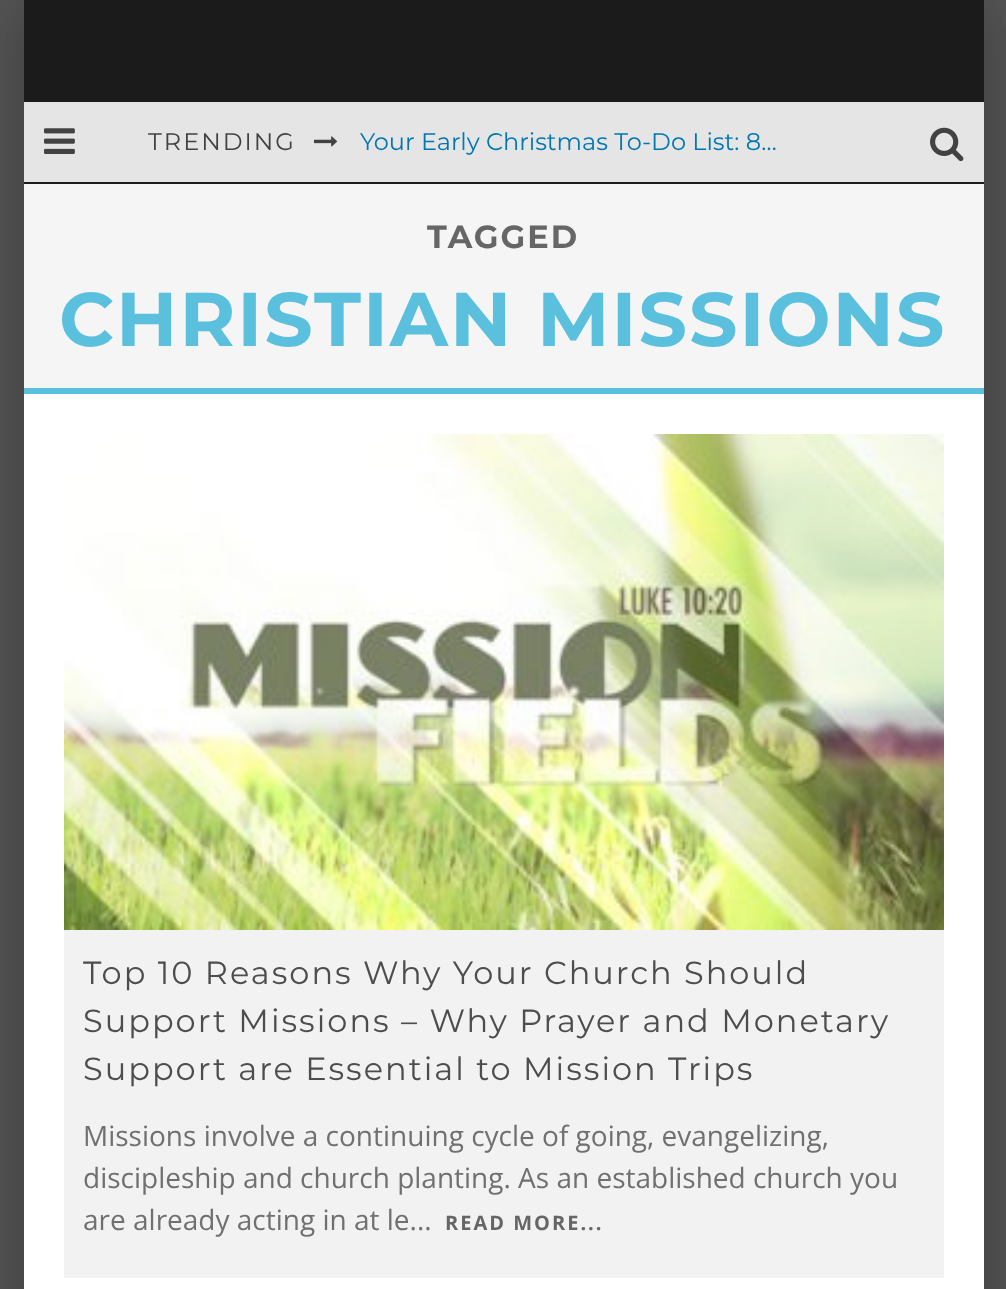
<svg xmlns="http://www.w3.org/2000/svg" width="1006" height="1289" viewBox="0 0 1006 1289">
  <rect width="100%" height="100%" fill="#565656"/>
  <path d="M4 0h960v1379H4z" fill="#00000026" filter="blur(30px)"/>
  <path d="M44 0h960v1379H44z" fill="#00000026" filter="blur(30px)"/>
  <path d="M24 0h960v184H24z" fill="#1b1b1b"/>
  <path d="M24 102h960v80H24z" fill="#e5e5e5"/>
  <image x="44" y="128" width="31" height="26" href="img/1.png"/>
  <image x="314" y="136" width="24" height="11" href="img/2.png"/>
  <image x="930" y="127" width="34" height="35" href="img/3.png"/>
  <path d="M24 394h960v895H24z" fill="#fff"/>
  <path d="M24 184h960v204H24z" fill="#f5f5f5"/>
  <path d="M24 388h960v6H24z" fill="#5bc0de"/>
  <path d="M64 930h880v348H64z" fill="#f2f2f2"/>
  <image x="64" y="434" width="880" height="496" href="img/4.png"/>
  <text x="148" y="150" font-family="Montserrat" font-size="24" letter-spacing="2" fill="#424242">TRENDING</text>
  <text x="360" y="150" font-family="Montserrat" font-size="24" fill="#0077b3">Your Early Christmas To-Do List: 8…</text>
  <text x="427" y="248" font-family="Montserrat" font-size="32" font-weight="bold" letter-spacing="2" fill="#666">TAGGED</text>
  <text x="59" y="346" font-family="Montserrat" font-size="76" font-weight="bold" letter-spacing="2" fill="#5bc0de">CHRISTIAN MISSIONS</text>
  <g font-family="Montserrat" font-size="32" letter-spacing="2" fill="#4d4d4d">
    <text x="83" y="984">Top 10 Reasons Why Your Church Should</text>
    <text x="83" y="1032">Support Missions – Why Prayer and Monetary</text>
    <text x="83" y="1080">Support are Essential to Mission Trips</text>
  </g>
  <g font-family="Open Sans" font-size="28" fill="#707070">
    <text x="83" y="1146">Missions involve a continuing cycle of going, evangelizing,</text>
    <text x="83" y="1188">discipleship and church planting. As an established church you</text>
    <text x="83" y="1230">are already acting in at le...</text>
  </g>
  <text x="445" y="1230" font-family="Open Sans" font-size="20" font-weight="bold" letter-spacing="2" fill="#666">READ MORE...</text>
</svg>
